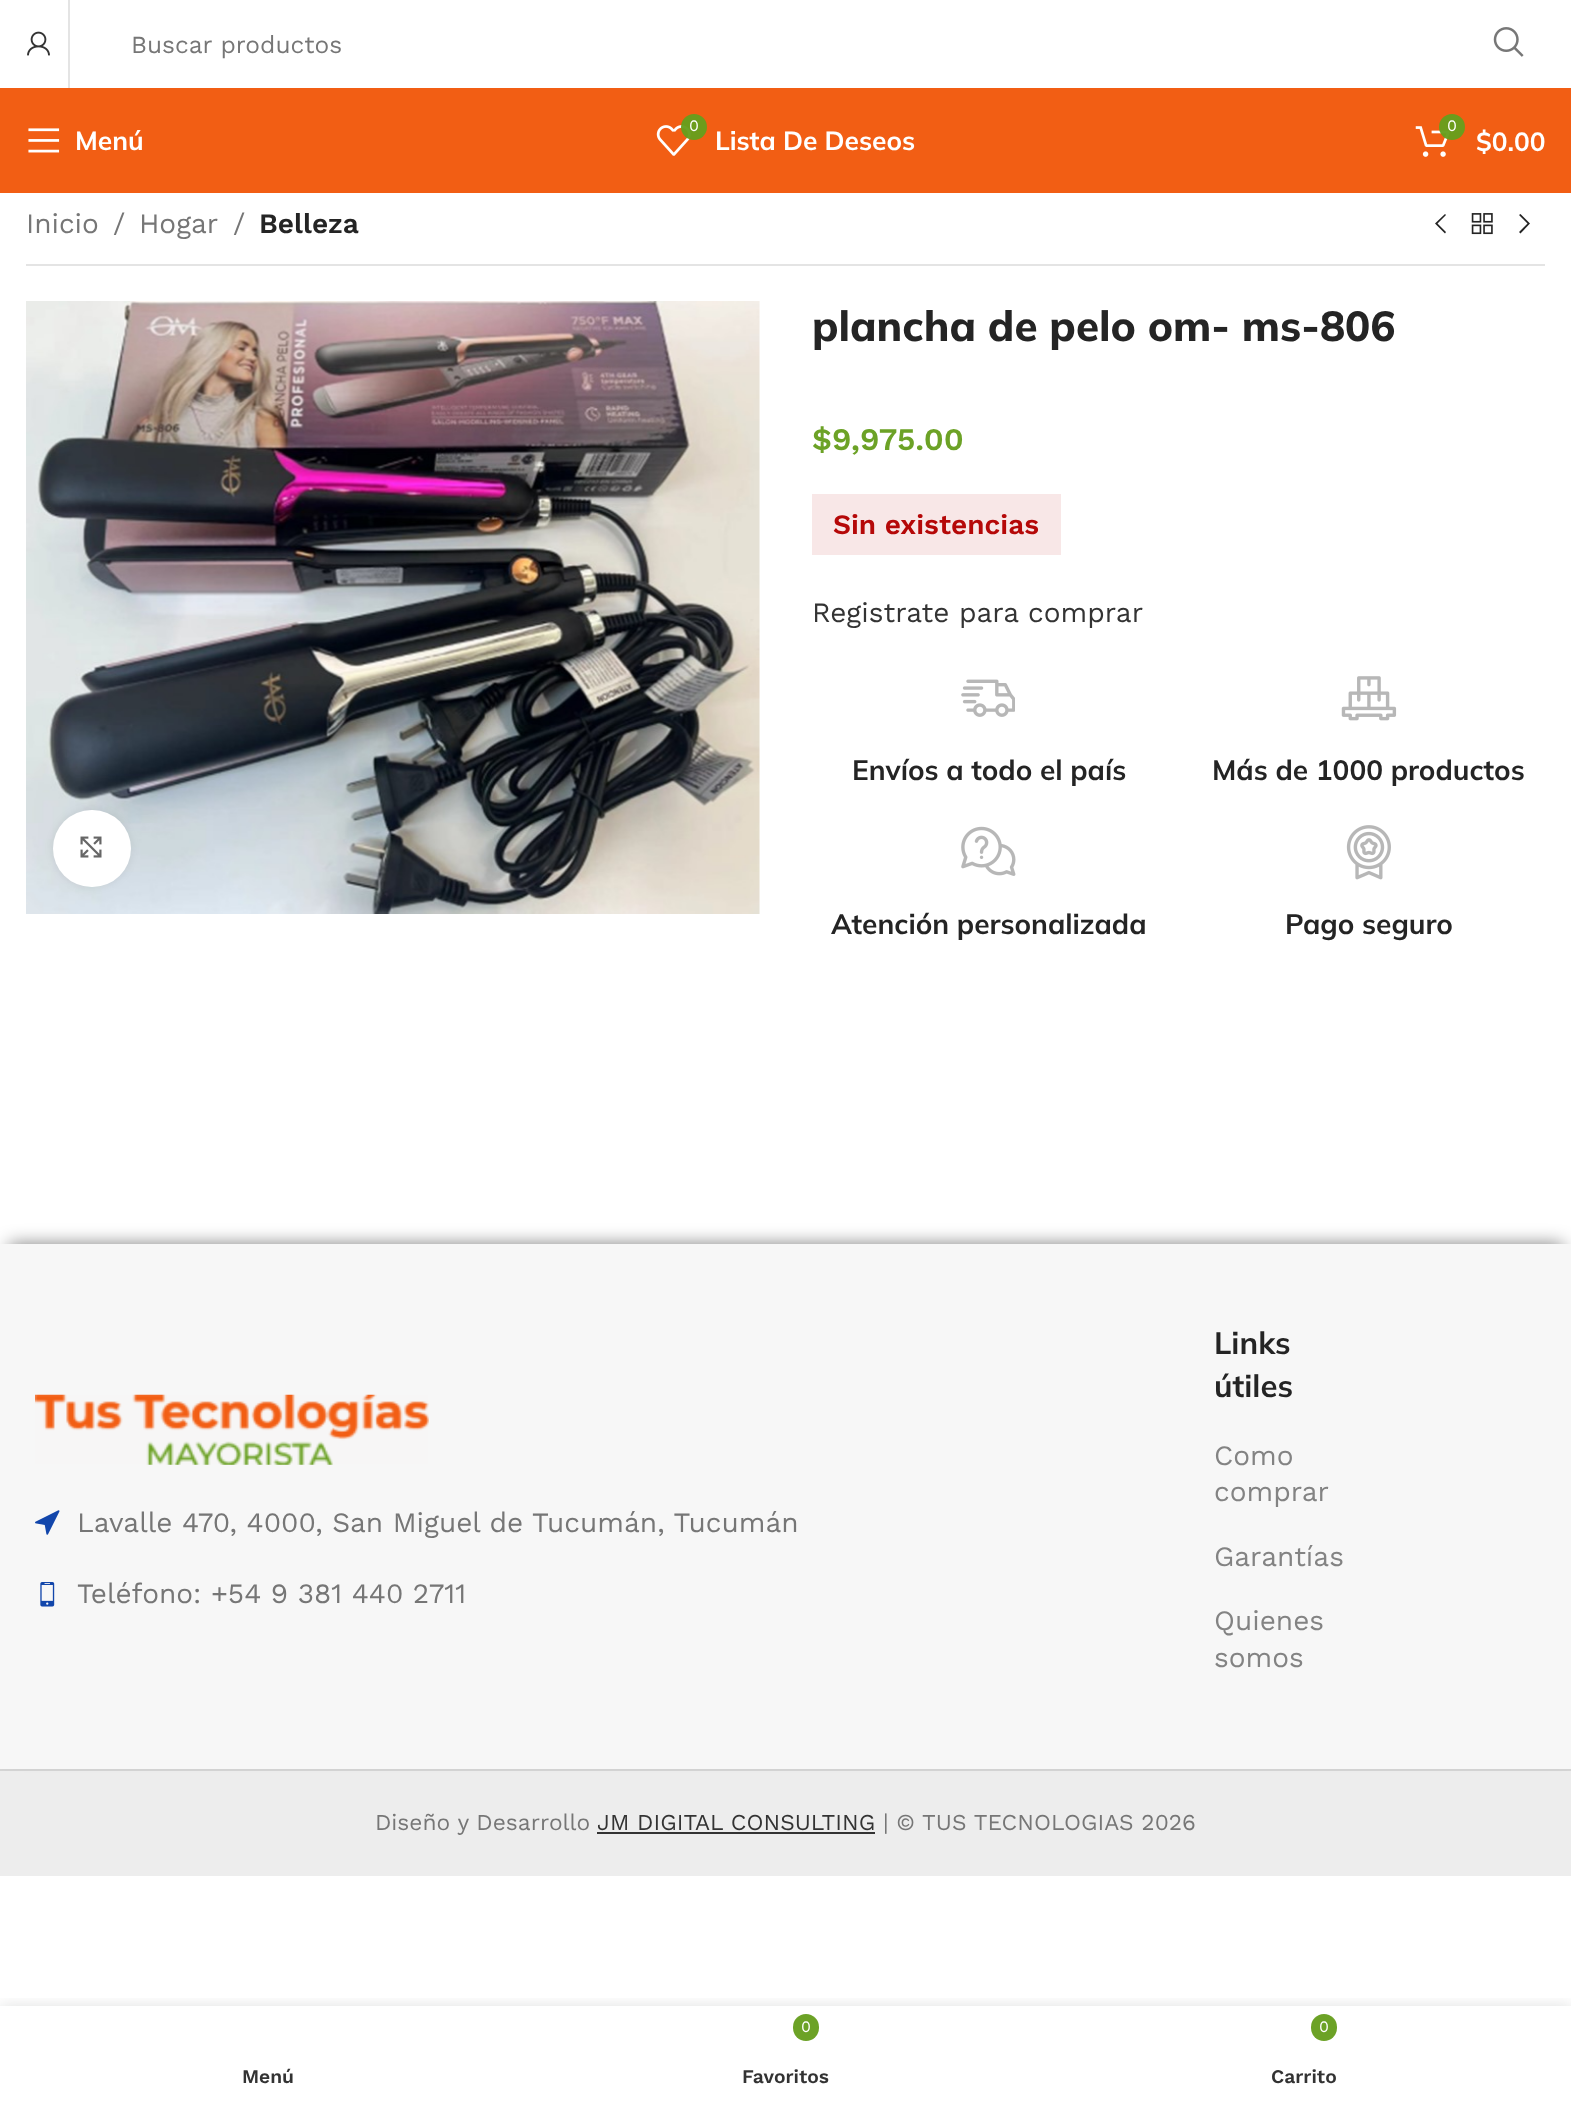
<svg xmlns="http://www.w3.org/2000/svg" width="1571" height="2101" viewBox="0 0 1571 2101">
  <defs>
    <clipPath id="clip1"><path d="M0 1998h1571v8H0z"/></clipPath>
  </defs>
  <rect width="100%" height="100%" fill="#fff"/>
  <image x="27" y="31" width="23" height="25" href="img/1.png"/>
  <path d="M68 0h2v88H68z" fill="#e4e4e4"/>
  <image x="1493" y="27" width="31" height="30" href="img/2.png"/>
  <path d="M0 88h1571v105H0z" fill="#f25e14"/>
  <image x="28" y="128" width="32" height="25" href="img/3.png"/>
  <image x="656" y="125" width="35" height="31" href="img/4.png"/>
  <circle cx="694" cy="127" r="13" fill="#669e1df5"/>
  <image x="1415" y="126" width="35" height="31" href="img/5.png"/>
  <circle cx="1452" cy="127" r="13" fill="#669e1df5"/>
  <path d="M26 264h1519v2H26z" fill="#e4e4e4"/>
  <path d="M1446 215L1445 214L1435 223.5L1445 233.5L1446 232L1437.5 223.5Z" fill="#242424"/>
  <image x="1471" y="213" width="22" height="22" href="img/6.png"/>
  <path d="M1519 215L1527.5 223.5L1519 232L1520.5 233.5L1530 223.5L1520.5 214Z" fill="#242424"/>
  <image x="26" y="301" width="734" height="613" href="img/7.png"/>
  <rect x="53" y="810" width="78" height="77" rx="38.5" fill="#00000014" filter="blur(4.5px)"/>
  <rect x="53" y="810" width="78" height="77" rx="38.5" fill="#fff"/>
  <image x="80" y="836" width="22" height="22" href="img/8.png"/>
  <path d="M812 494h249v61H812z" fill="#f8e7e7"/>
  <image x="961" y="679" width="54" height="38" href="img/9.png"/>
  <image x="1341" y="676" width="56" height="45" href="img/10.png"/>
  <image x="961" y="826" width="55" height="50" href="img/11.png"/>
  <image x="1346" y="825" width="45" height="55" href="img/12.png"/>
  <path d="M0 1771h1571v105H0z" fill="#ededed"/>
  <path d="M0 1769h1571v2H0z" fill="#d4d4d4"/>
  <path d="M9 1244h1554v508H9z" fill="#00000080" filter="blur(9px)"/>
  <path d="M0 1244h1571v525H0z" fill="#f7f7f7"/>
  <image x="35" y="1394" width="394" height="71" href="img/13.png"/>
  <image x="35" y="1510" width="25" height="25" href="img/14.png"/>
  <image x="40" y="1582" width="15" height="25" href="img/15.png"/>
  <path d="M597 1832h278v2H597z" fill="#333"/>
  <g clip-path="url(#clip1)">
    <path d="M0 2006h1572v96H0z" fill="#0000001f" filter="blur(8px)"/>
  </g>
  <rect x="793" y="2014" width="26" height="27" rx="13" fill="#6ca226"/>
  <rect x="1311" y="2014" width="26" height="27" rx="13" fill="#6ca226"/>
  <text x="131" y="53" font-family="Work Sans" font-size="24.5" fill="#767676">Buscar productos</text>
  <text x="75" y="150" font-family="Mulish" font-size="26.25" font-weight="bold" fill="#fff">Menú</text>
  <text x="689" y="131" font-family="Work Sans" font-size="16" fill="#fff">0</text>
  <text x="715" y="150" font-family="Mulish" font-size="26.25" font-weight="bold" fill="#fff">Lista De Deseos</text>
  <text x="1447" y="131" font-family="Work Sans" font-size="16" fill="#fff">0</text>
  <text x="1476" y="151" font-family="Mulish" font-size="26.25" font-weight="bold" fill="#fff">$0.00</text>
  <g font-family="Work Sans" font-size="28" fill="#767676">
    <text x="26" y="233">Inicio</text>
    <text x="113" y="233">/</text>
    <text x="139" y="233">Hogar</text>
    <text x="233" y="233">/</text>
  </g>
  <text x="259" y="233" font-family="Work Sans" font-size="28" font-weight="600" fill="#242424">Belleza</text>
  <text x="812" y="341" font-family="Mulish" font-size="42" font-weight="800" fill="#242424">plancha de pelo om- ms-806</text>
  <text x="812" y="450" font-family="Work Sans" font-size="31.5" font-weight="600" fill="#6ca226">$9,975.00</text>
  <text x="833" y="534" font-family="Work Sans" font-size="28" font-weight="600" fill="#b50808">Sin existencias</text>
  <text x="812" y="622" font-family="Work Sans" font-size="28" fill="#333">Registrate para comprar</text>
  <g font-family="Mulish" font-size="28" font-weight="bold" fill="#242424">
    <text x="852" y="780">Envíos a todo el país</text>
    <text x="1212" y="780">Más de 1000 productos</text>
    <text x="831" y="934">Atención personalizada</text>
    <text x="1285" y="934">Pago seguro</text>
  </g>
  <g font-family="Work Sans" font-size="28" fill="#767676">
    <text x="77" y="1532">Lavalle 470, 4000, San Miguel de Tucumán, Tucumán</text>
    <text x="77" y="1603">Teléfono: +54 9 381 440 2711</text>
  </g>
  <g font-family="Mulish" font-size="31" font-weight="bold" fill="#242424">
    <text x="1214" y="1354">Links</text>
    <text x="1214" y="1397">útiles</text>
  </g>
  <g font-family="Work Sans" font-size="28" fill="#838383">
    <text x="1214" y="1465">Como</text>
    <text x="1214" y="1501">comprar</text>
    <text x="1214" y="1566">Garantías</text>
    <text x="1214" y="1630">Quienes</text>
    <text x="1214" y="1667">somos</text>
  </g>
  <text x="375" y="1830" font-family="Work Sans" font-size="22.75" fill="#767676">Diseño y Desarrollo</text>
  <text x="597" y="1830" font-family="Work Sans" font-size="22.75" fill="#333">JM DIGITAL CONSULTING</text>
  <text x="883" y="1830" font-family="Work Sans" font-size="22.75" fill="#767676">| © TUS TECNOLOGIAS 2026</text>
  <text x="242" y="2083" font-family="Work Sans" font-size="19.25" font-weight="600" fill="#333">Menú</text>
  <text x="801" y="2032" font-family="Work Sans" font-size="16" fill="#fff">0</text>
  <text x="742" y="2083" font-family="Work Sans" font-size="19.25" font-weight="600" fill="#333">Favoritos</text>
  <text x="1319" y="2032" font-family="Work Sans" font-size="16" fill="#fff">0</text>
  <text x="1271" y="2083" font-family="Work Sans" font-size="19.25" font-weight="600" fill="#333">Carrito</text>
</svg>
